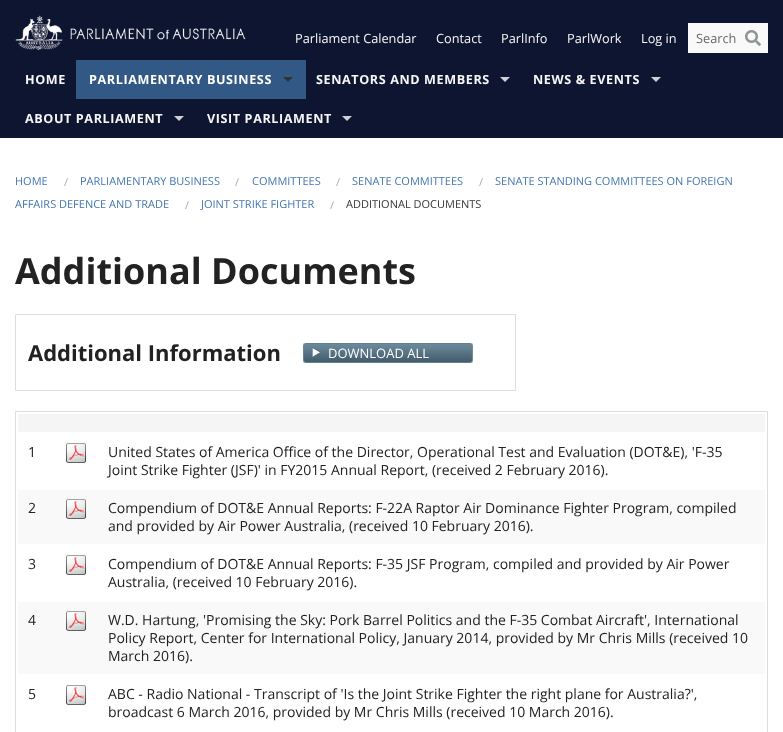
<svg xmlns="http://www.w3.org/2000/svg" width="783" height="732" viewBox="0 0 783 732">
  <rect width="100%" height="100%" fill="#fff"/>
  <path d="M0 0h783v138H0z" fill="#0e1531"/>
  <image x="15" y="15" width="231" height="35" href="img/1.png"/>
  <path d="M688 23h80v30H688z" fill="#f9f9f9"/>
  <image x="745" y="30" width="16" height="16" href="img/2.png"/>
  <path d="M76 60h230v39H76z" fill="#325986"/>
  <path d="M283 77H293L288 82Z" fill="#333"/>
  <path d="M500 77H510L505 82Z" fill="#cfd0d6"/>
  <path d="M651 77H661L656 82Z" fill="#cfd0d6"/>
  <path d="M174 116H184L179 121Z" fill="#cfd0d6"/>
  <path d="M342 116H352L347 121Z" fill="#cfd0d6"/>
  <path d="M15.5 314.5h500v76H15.5z" fill="none" stroke="#ddd"/>
  <image x="303" y="343" width="170" height="20" href="img/3.png"/>
  <path d="M15.5 411.5h752v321H15.5z" fill="none" stroke="#ddd"/>
  <path d="M18 414h747v18H18z" fill="#f5f5f5"/>
  <image x="66" y="443" width="20" height="20" href="img/4.png"/>
  <path d="M18 490h747v54H18z" fill="#f9f9f9"/>
  <image x="66" y="499" width="20" height="20" href="img/4.png"/>
  <image x="66" y="555" width="20" height="20" href="img/4.png"/>
  <path d="M18 602h747v72H18z" fill="#f9f9f9"/>
  <image x="66" y="611" width="20" height="20" href="img/4.png"/>
  <image x="66" y="685" width="20" height="20" href="img/4.png"/>
  <g font-family="Open Sans" font-size="12.75" fill="#f6f6f6">
    <text x="295" y="43">Parliament Calendar</text>
    <text x="436" y="43">Contact</text>
    <text x="501" y="43">ParlInfo</text>
    <text x="567" y="43">ParlWork</text>
    <text x="641" y="43">Log in</text>
  </g>
  <text x="696" y="43" font-family="Open Sans" font-size="12.75" fill="#696969">Search</text>
  <text x="25" y="84" font-family="Open Sans" font-size="12.6" font-weight="bold" letter-spacing="0.6" fill="#f6f6f6">HOME</text>
  <text x="89" y="84" font-family="Open Sans" font-size="12.6" font-weight="bold" letter-spacing="0.6" fill="#fff">PARLIAMENTARY BUSINESS</text>
  <g font-family="Open Sans" font-size="12.6" font-weight="bold" letter-spacing="0.6" fill="#f6f6f6">
    <text x="316" y="84">SENATORS AND MEMBERS</text>
    <text x="533" y="84">NEWS &amp; EVENTS</text>
    <text x="25" y="123">ABOUT PARLIAMENT</text>
    <text x="207" y="123">VISIT PARLIAMENT</text>
  </g>
  <text x="15" y="185" font-family="Open Sans" font-size="11" fill="#4275ae">HOME</text>
  <text x="64" y="186" font-family="Open Sans" font-size="11" fill="#aaa">/</text>
  <text x="80" y="185" font-family="Open Sans" font-size="11" fill="#4275ae">PARLIAMENTARY BUSINESS</text>
  <text x="235" y="186" font-family="Open Sans" font-size="11" fill="#aaa">/</text>
  <text x="252" y="185" font-family="Open Sans" font-size="11" fill="#4275ae">COMMITTEES</text>
  <text x="336" y="186" font-family="Open Sans" font-size="11" fill="#aaa">/</text>
  <text x="352" y="185" font-family="Open Sans" font-size="11" fill="#4275ae">SENATE COMMITTEES</text>
  <text x="479" y="186" font-family="Open Sans" font-size="11" fill="#aaa">/</text>
  <g font-family="Open Sans" font-size="11" fill="#4275ae">
    <text x="495" y="185">SENATE STANDING COMMITTEES ON FOREIGN</text>
    <text x="15" y="208">AFFAIRS DEFENCE AND TRADE</text>
  </g>
  <text x="185" y="209" font-family="Open Sans" font-size="11" fill="#aaa">/</text>
  <text x="201" y="208" font-family="Open Sans" font-size="11" fill="#4275ae">JOINT STRIKE FIGHTER</text>
  <text x="330" y="209" font-family="Open Sans" font-size="11" fill="#aaa">/</text>
  <text x="346" y="208" font-family="Open Sans" font-size="11" fill="#333">ADDITIONAL DOCUMENTS</text>
  <text x="15" y="284" font-family="Open Sans" font-size="36" font-weight="bold" fill="#222">Additional Documents</text>
  <text x="28" y="361" font-family="Open Sans" font-size="22" font-weight="bold" fill="#222">Additional Information</text>
  <text x="328" y="358" font-family="Open Sans" font-size="13" fill="#fff">DOWNLOAD ALL</text>
  <g font-family="Open Sans" font-size="14" fill="#222">
    <text x="28" y="457">1</text>
    <text x="108" y="457">United States of America Office of the Director, Operational Test and Evaluation (DOT&amp;E), 'F-35</text>
    <text x="108" y="475">Joint Strike Fighter (JSF)' in FY2015 Annual Report, (received 2 February 2016).</text>
    <text x="28" y="513">2</text>
    <text x="108" y="513">Compendium of DOT&amp;E Annual Reports: F-22A Raptor Air Dominance Fighter Program, compiled</text>
    <text x="108" y="531">and provided by Air Power Australia, (received 10 February 2016).</text>
    <text x="28" y="569">3</text>
    <text x="108" y="569">Compendium of DOT&amp;E Annual Reports: F-35 JSF Program, compiled and provided by Air Power</text>
    <text x="108" y="587">Australia, (received 10 February 2016).</text>
    <text x="28" y="625">4</text>
    <text x="108" y="625">W.D. Hartung, 'Promising the Sky: Pork Barrel Politics and the F-35 Combat Aircraft', International</text>
    <text x="108" y="643">Policy Report, Center for International Policy, January 2014, provided by Mr Chris Mills (received 10</text>
    <text x="108" y="661">March 2016).</text>
    <text x="28" y="699">5</text>
    <text x="108" y="699">ABC - Radio National - Transcript of 'Is the Joint Strike Fighter the right plane for Australia?',</text>
    <text x="108" y="717">broadcast 6 March 2016, provided by Mr Chris Mills (received 10 March 2016).</text>
  </g>
</svg>
